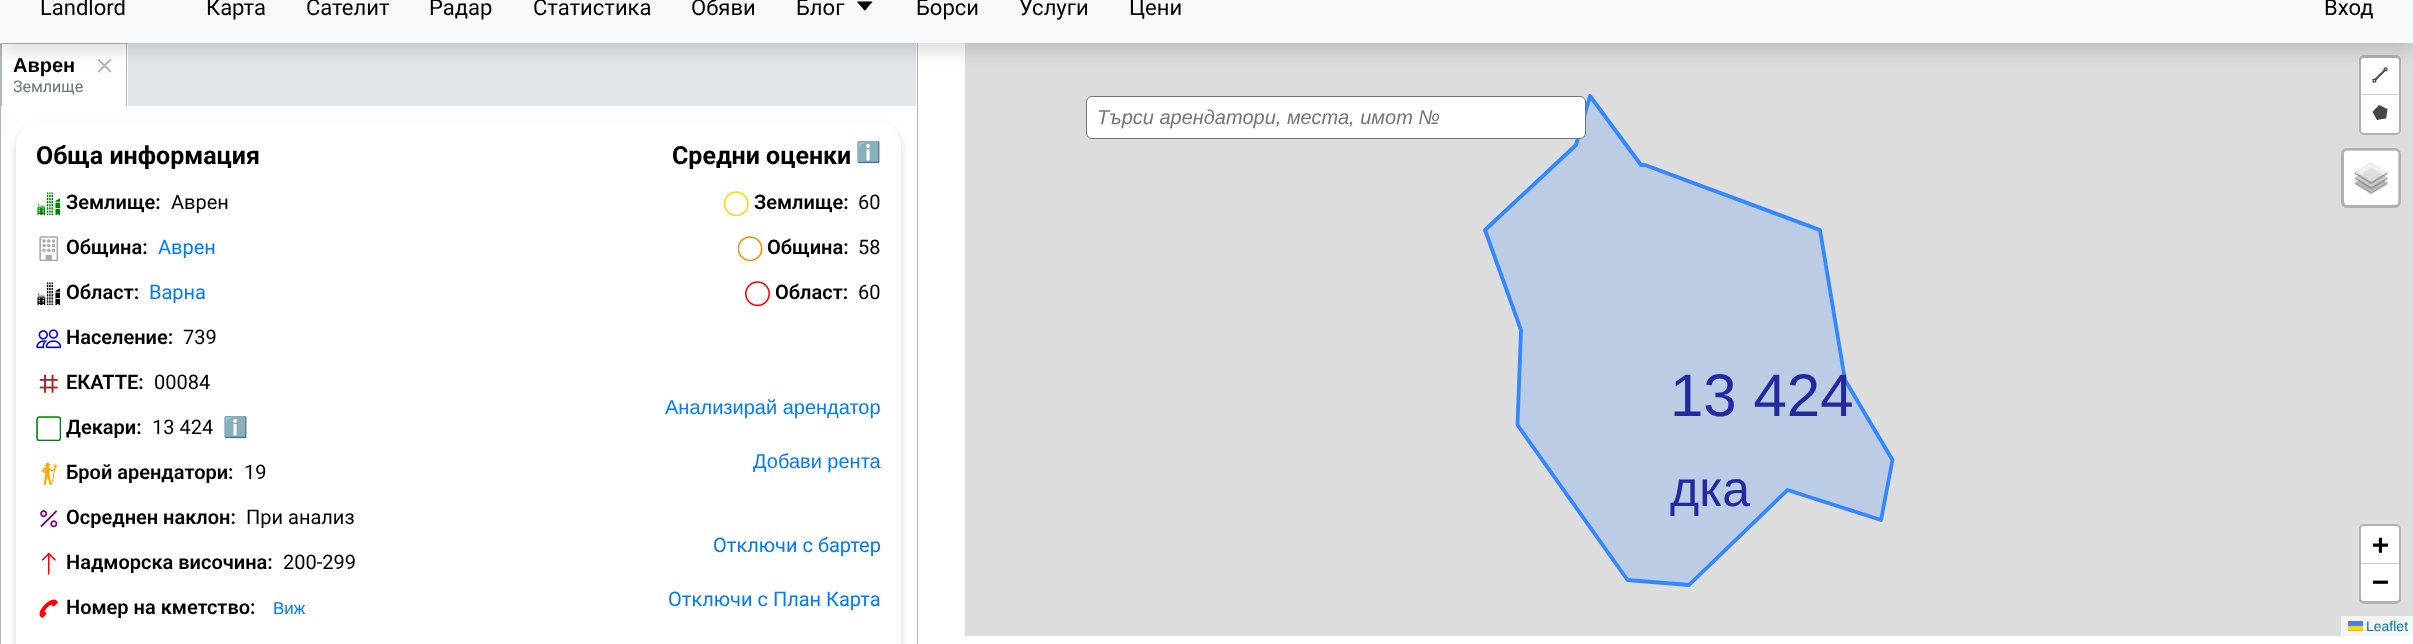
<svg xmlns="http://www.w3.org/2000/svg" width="2413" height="644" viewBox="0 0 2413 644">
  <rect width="100%" height="100%" fill="#fff"/>
  <path d="M0.5 -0.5h917v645H0.5z" fill="none" stroke="#b0b6ba"/>
  <path d="M128 43h788v63H128z" fill="#e2e6ea"/>
  <path d="M1 43h127v1H1z" fill="#b0b6ba"/>
  <path d="M126 43h1v63H126z" fill="#b0b6ba"/>
  <path d="M1 43h1v63H1z" fill="#b0b6ba"/>
  <image x="97" y="59" width="15" height="14" href="img/2.png"/>
  <path d="M965 43h1448v593H965z" fill="#ddd"/>
  <path d="M0 -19h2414v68H0z" fill="#00000029" filter="blur(9.5px)"/>
  <path d="M0 0h2413v43H0z" fill="#f8f9fa"/>
  <image x="857" y="1" width="16" height="10" href="img/1.png"/>
  <rect x="16" y="125" width="885" height="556" rx="25" fill="#00000029" filter="blur(4px)"/>
  <path d="M41 121H876C890 121 901 132 901 146V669H16V146C16 132 27 121 41 121Z" fill="#fff"/>
  <image x="37" y="192" width="24" height="23" href="img/3.png"/>
  <image x="39" y="236" width="20" height="25" href="img/4.png"/>
  <image x="37" y="282" width="24" height="23" href="img/5.png"/>
  <image x="36" y="329" width="25" height="20" href="img/6.png"/>
  <image x="39" y="374" width="19" height="19" href="img/7.png"/>
  <image x="36" y="416" width="25" height="25" href="img/8.png"/>
  <image x="41" y="462" width="17" height="23" href="img/9.png"/>
  <image x="40" y="510" width="18" height="18" href="img/10.png"/>
  <image x="41" y="552" width="15" height="23" href="img/11.png"/>
  <image x="39" y="599" width="19" height="19" href="img/12.png"/>
  <image x="724" y="191" width="25" height="25" href="img/13.png"/>
  <image x="738" y="236" width="25" height="25" href="img/14.png"/>
  <image x="745" y="281" width="25" height="25" href="img/15.png"/>
  <path d="M1820 230L1845 380L1892 460L1881 520L1788 490L1689 585L1628 580L1518 425L1521 330L1485 230L1576 145L1590 96L1641 165H1645Z" fill="#bbcce4" fill-rule="evenodd"/>
  <path d="M1820 230L1845 380L1892.5 460L1881 520L1787.5 490L1689 585L1627.5 580L1517.5 425L1521 330L1485 230L1576 145L1590 96L1641 165H1645Z" fill="none" stroke="#38f" stroke-width="3.8" stroke-linecap="round" stroke-linejoin="round"/>
  <rect x="2360.5" y="56.5" width="39" height="77" rx="3.5" fill="none" stroke="#00000033" stroke-width="3"/>
  <path d="M2363.5 58H2396.5C2398 58 2399 59 2399 60.5V94H2361V60.5C2361 59 2362 58 2363.5 58Z" fill="#fff"/>
  <image x="2372" y="67" width="16" height="16" href="img/16.png"/>
  <path d="M2361 94h38v1H2361z" fill="#ccc"/>
  <path d="M2361 95H2399V130.5C2399 132 2398 133 2396.5 133H2363.5C2362 133 2361 132 2361 130.5Z" fill="#fff"/>
  <image x="2372" y="105" width="16" height="15" href="img/17.png"/>
  <rect x="2344" y="150" width="55" height="55" rx="4" fill="#fff"/>
  <rect x="2342.5" y="149.5" width="57" height="57" rx="4.5" fill="none" stroke="#00000033" stroke-width="3"/>
  <image x="2355" y="162" width="33" height="32" href="img/18.png"/>
  <rect x="2360.5" y="525.5" width="39" height="77" rx="3.5" fill="none" stroke="#b1b1b1" stroke-width="3"/>
  <path d="M2363.5 526H2396.5C2398 526 2399 527 2399 528.5V564H2361V528.5C2361 527 2362 526 2363.5 526Z" fill="#fff"/>
  <path d="M2361 563h38v1H2361z" fill="#ccc"/>
  <path d="M2361 564H2399V598.5C2399 600 2398 601 2396.5 601H2363.5C2362 601 2361 600 2361 598.5Z" fill="#fff"/>
  <path d="M2341 616h72v20H2341z" fill="#f5f5f5"/>
  <path d="M2348 621h15v5H2348z" fill="#4c7be1"/>
  <path d="M2348 626h15v4H2348z" fill="#ffd500"/>
  <path d="M2348 630h15v1H2348z" fill="#e0bc00"/>
  <rect x="1086.5" y="96.5" width="499" height="42" rx="5.5" fill="#fff" stroke="#6c757d"/>
  <g font-family="Roboto" font-size="22" fill="#000">
    <text x="40" y="15">Landlord</text>
    <text x="206" y="15">Карта</text>
    <text x="306" y="15">Сателит</text>
    <text x="429" y="15">Радар</text>
    <text x="533" y="15">Статистика</text>
    <text x="691" y="15">Обяви</text>
    <text x="796" y="15">Блог</text>
    <text x="916" y="15">Борси</text>
    <text x="1019" y="15">Услуги</text>
    <text x="1129" y="15">Цени</text>
    <text x="2324" y="15">Вход</text>
  </g>
  <text x="13" y="72" font-family="Liberation Sans" font-size="20" font-weight="bold" fill="#000">Аврен</text>
  <text x="13" y="92" font-family="Roboto" font-size="16" fill="#6c757d">Землище</text>
  <text x="36" y="164" font-family="Roboto" font-size="25" font-weight="bold" fill="#000">Обща информация</text>
  <text x="66" y="209" font-family="Roboto" font-size="20" font-weight="600" fill="#000">Землище:</text>
  <text x="171" y="209" font-family="Roboto" font-size="20" fill="#000">Аврен</text>
  <text x="66" y="254" font-family="Roboto" font-size="20" font-weight="600" fill="#000">Община:</text>
  <text x="158" y="254" font-family="Roboto" font-size="20" fill="#007bff">Аврен</text>
  <text x="66" y="299" font-family="Roboto" font-size="20" font-weight="600" fill="#000">Област:</text>
  <text x="149" y="299" font-family="Roboto" font-size="20" fill="#007bff">Варна</text>
  <text x="66" y="344" font-family="Roboto" font-size="20" font-weight="600" fill="#000">Население:</text>
  <text x="183" y="344" font-family="Roboto" font-size="20" fill="#000">739</text>
  <text x="66" y="389" font-family="Roboto" font-size="20" font-weight="600" fill="#000">ЕКАТТЕ:</text>
  <text x="154" y="389" font-family="Roboto" font-size="20" fill="#000">00084</text>
  <text x="66" y="434" font-family="Roboto" font-size="20" font-weight="600" fill="#000">Декари:</text>
  <text x="152" y="434" font-family="Roboto" font-size="20" fill="#000">13 424</text>
  <text x="223" y="434" font-family="Noto Color Emoji" font-size="20" fill="#9ca3af">ℹ️</text>
  <text x="66" y="479" font-family="Roboto" font-size="20" font-weight="600" fill="#000">Брой арендатори:</text>
  <text x="244" y="479" font-family="Roboto" font-size="20" fill="#000">19</text>
  <text x="66" y="524" font-family="Roboto" font-size="20" font-weight="600" fill="#000">Осреднен наклон:</text>
  <text x="246" y="524" font-family="Roboto" font-size="20" fill="#000">При анализ</text>
  <text x="66" y="569" font-family="Roboto" font-size="20" font-weight="600" fill="#000">Надморска височина:</text>
  <text x="283" y="569" font-family="Roboto" font-size="20" fill="#000">200-299</text>
  <text x="66" y="614" font-family="Roboto" font-size="20" font-weight="600" fill="#000">Номер на кметство:</text>
  <text x="273" y="614" font-family="Liberation Sans" font-size="17" fill="#007bff">Виж</text>
  <text x="672" y="164" font-family="Roboto" font-size="25" font-weight="bold" fill="#000">Средни оценки</text>
  <text x="856" y="159" font-family="Noto Color Emoji" font-size="20" fill="#9ca3af">ℹ️</text>
  <text x="754" y="209" font-family="Roboto" font-size="20" font-weight="600" fill="#000">Землище:</text>
  <text x="858" y="209" font-family="Roboto" font-size="20" fill="#000">60</text>
  <text x="767" y="254" font-family="Roboto" font-size="20" font-weight="600" fill="#000">Община:</text>
  <text x="858" y="254" font-family="Roboto" font-size="20" fill="#000">58</text>
  <text x="775" y="299" font-family="Roboto" font-size="20" font-weight="600" fill="#000">Област:</text>
  <text x="858" y="299" font-family="Roboto" font-size="20" fill="#000">60</text>
  <g font-family="Liberation Sans" font-size="20" fill="#007bff">
    <text x="665" y="414">Анализирай арендатор</text>
    <text x="753" y="468">Добави рента</text>
  </g>
  <g font-family="Roboto" font-size="20" fill="#007bff">
    <text x="713" y="552">Отключи с бартер</text>
    <text x="668" y="606">Отключи с План Карта</text>
  </g>
  <text x="1670" y="416" font-family="Liberation Sans" font-size="60" fill="#25299d">13 424</text>
  <text x="1670" y="506" font-family="Liberation Sans" font-size="50" fill="#25299d">дка</text>
  <g font-family="DejaVu Sans Mono" font-size="28" font-weight="bold" fill="#000">
    <text x="2372" y="554">+</text>
    <text x="2372" y="591">−</text>
  </g>
  <text x="2366" y="631" font-family="Liberation Sans" font-size="14" fill="#0078a8">Leaflet</text>
  <text x="1097" y="124" font-family="Liberation Sans" font-size="20" font-style="italic" fill="#757575">Търси арендатори, места, имот №</text>
</svg>
